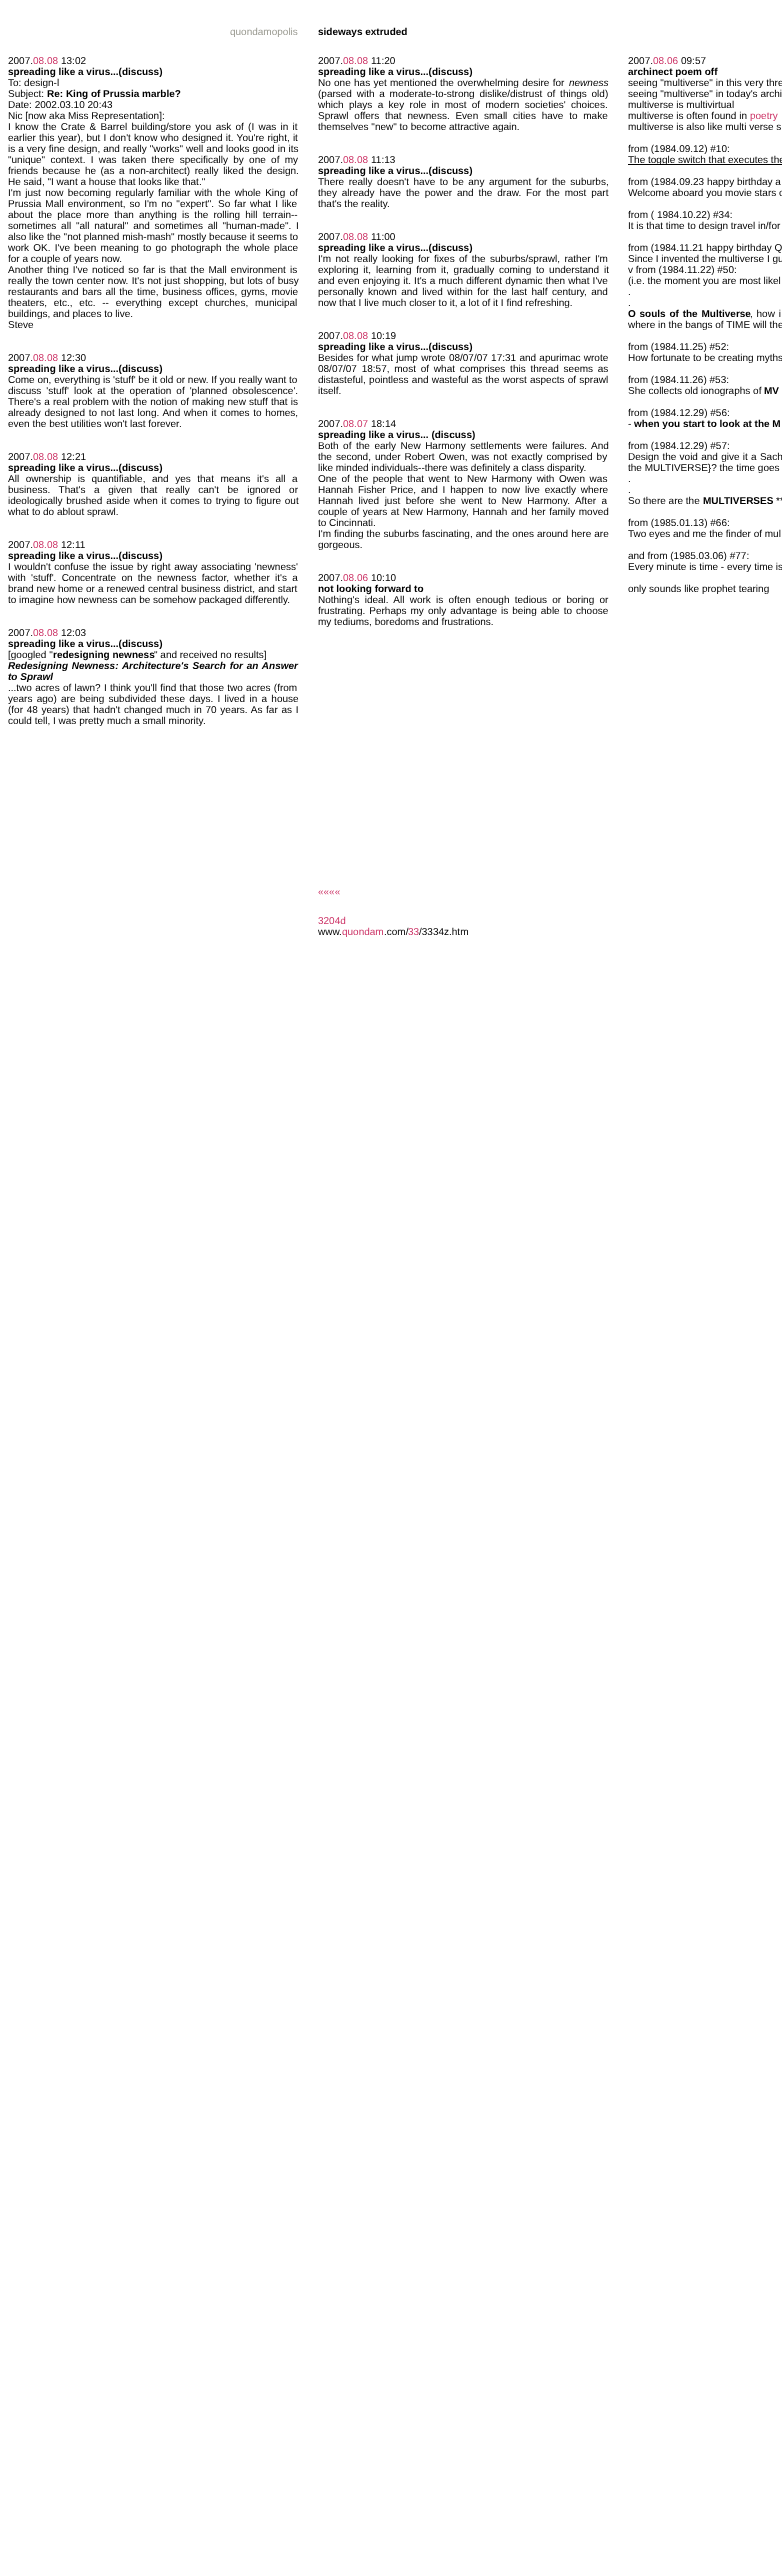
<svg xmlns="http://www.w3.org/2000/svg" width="782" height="2558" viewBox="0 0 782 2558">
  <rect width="100%" height="100%" fill="#fff"/>
  <path d="M628 164h154v1H628z" fill="#000"/>
  <text x="230" y="35" font-family="Liberation Sans" font-size="10" fill="#999990">quondamopolis</text>
  <text x="318" y="35" font-family="Liberation Sans" font-size="10" font-weight="bold" fill="#000">sideways extruded</text>
  <text x="8" y="64" font-family="Liberation Sans" font-size="10" fill="#000">2007.</text>
  <text x="33" y="64" font-family="Liberation Sans" font-size="10" fill="#c36">08.08</text>
  <text x="61" y="64" font-family="Liberation Sans" font-size="10" fill="#000">13:02</text>
  <text x="8" y="75" font-family="Liberation Sans" font-size="10" font-weight="bold" fill="#000">spreading like a virus...(discuss)</text>
  <g font-family="Liberation Sans" font-size="10" fill="#000">
    <text x="8" y="86">To: design-l</text>
    <text x="8" y="97">Subject:</text>
  </g>
  <text x="47" y="97" font-family="Liberation Sans" font-size="10" font-weight="bold" fill="#000">Re: King of Prussia marble?</text>
  <g font-family="Liberation Sans" font-size="10" fill="#000">
    <text x="8" y="108">Date: 2002.03.10 20:43</text>
    <text x="8" y="119">Nic [now aka Miss Representation]:</text>
    <text x="8" y="130" word-spacing="1.5">I know the Crate &amp; Barrel building/store you ask of (I was in it</text>
    <text x="8" y="141" word-spacing="0.4">earlier this year), but I don't know who designed it. You're right, it</text>
    <text x="8" y="152" word-spacing="0.25">is a very fine design, and really "works" well and looks good in its</text>
    <text x="8" y="163" word-spacing="2.5">"unique" context. I was taken there specifically by one of my</text>
    <text x="8" y="174" word-spacing="1.75">friends because he (as a non-architect) really liked the design.</text>
    <text x="8" y="185">He said, "I want a house that looks like that."</text>
    <text x="8" y="196" word-spacing="1.5">I'm just now becoming regularly familiar with the whole King of</text>
    <text x="8" y="207" word-spacing="1.25">Prussia Mall environment, so I'm no "expert". So far what I like</text>
    <text x="8" y="218" word-spacing="2.4">about the place more than anything is the rolling hill terrain--</text>
    <text x="8" y="229" word-spacing="2">sometimes all "all natural" and sometimes all "human-made". I</text>
    <text x="8" y="240">also like the "not planned mish-mash" mostly because it seems to</text>
    <text x="8" y="251" word-spacing="1.4">work OK. I've been meaning to go photograph the whole place</text>
    <text x="8" y="262">for a couple of years now.</text>
    <text x="8" y="273" word-spacing="1.25">Another thing I've noticed so far is that the Mall environment is</text>
    <text x="8" y="284" word-spacing="0.5">really the town center now. It's not just shopping, but lots of busy</text>
    <text x="8" y="295" word-spacing="1">restaurants and bars all the time, business offices, gyms, movie</text>
    <text x="8" y="306" word-spacing="4">theaters, etc., etc. -- everything except churches, municipal</text>
    <text x="8" y="317">buildings, and places to live.</text>
    <text x="8" y="328">Steve</text>
    <text x="8" y="361">2007.</text>
  </g>
  <text x="33" y="361" font-family="Liberation Sans" font-size="10" fill="#c36">08.08</text>
  <text x="61" y="361" font-family="Liberation Sans" font-size="10" fill="#000">12:30</text>
  <text x="8" y="372" font-family="Liberation Sans" font-size="10" font-weight="bold" fill="#000">spreading like a virus...(discuss)</text>
  <g font-family="Liberation Sans" font-size="10" fill="#000">
    <text x="8" y="383">Come on, everything is 'stuff' be it old or new. If you really want to</text>
    <text x="8" y="394" word-spacing="2.25">discuss 'stuff' look at the operation of 'planned obsolescence'.</text>
    <text x="8" y="405" word-spacing="0.4">There's a real problem with the notion of making new stuff that is</text>
    <text x="8" y="416" word-spacing="0.9">already designed to not last long. And when it comes to homes,</text>
    <text x="8" y="427">even the best utilities won't last forever.</text>
    <text x="8" y="460">2007.</text>
  </g>
  <text x="33" y="460" font-family="Liberation Sans" font-size="10" fill="#c36">08.08</text>
  <text x="61" y="460" font-family="Liberation Sans" font-size="10" fill="#000">12:21</text>
  <text x="8" y="471" font-family="Liberation Sans" font-size="10" font-weight="bold" fill="#000">spreading like a virus...(discuss)</text>
  <g font-family="Liberation Sans" font-size="10" fill="#000">
    <text x="8" y="482" word-spacing="3.75">All ownership is quantifiable, and yes that means it's all a</text>
    <text x="8" y="493" word-spacing="5.75">business. That's a given that really can't be ignored or</text>
    <text x="8" y="504" word-spacing="1">ideologically brushed aside when it comes to trying to figure out</text>
    <text x="8" y="515">what to do ablout sprawl.</text>
    <text x="8" y="548">2007.</text>
  </g>
  <text x="33" y="548" font-family="Liberation Sans" font-size="10" fill="#c36">08.08</text>
  <text x="61" y="548" font-family="Liberation Sans" font-size="10" fill="#000">12:11</text>
  <text x="8" y="559" font-family="Liberation Sans" font-size="10" font-weight="bold" fill="#000">spreading like a virus...(discuss)</text>
  <g font-family="Liberation Sans" font-size="10" fill="#000">
    <text x="8" y="570" word-spacing="0.75">I wouldn't confuse the issue by right away associating 'newness'</text>
    <text x="8" y="581" word-spacing="2.5">with 'stuff'. Concentrate on the newness factor, whether it's a</text>
    <text x="8" y="592" word-spacing="0.25">brand new home or a renewed central business district, and start</text>
    <text x="8" y="603">to imagine how newness can be somehow packaged differently.</text>
    <text x="8" y="636">2007.</text>
  </g>
  <text x="33" y="636" font-family="Liberation Sans" font-size="10" fill="#c36">08.08</text>
  <text x="61" y="636" font-family="Liberation Sans" font-size="10" fill="#000">12:03</text>
  <text x="8" y="647" font-family="Liberation Sans" font-size="10" font-weight="bold" fill="#000">spreading like a virus...(discuss)</text>
  <text x="8" y="658" font-family="Liberation Sans" font-size="10" fill="#000">[googled "</text>
  <text x="53" y="658" font-family="Liberation Sans" font-size="10" font-weight="bold" fill="#000">redesigning newness</text>
  <text x="154" y="658" font-family="Liberation Sans" font-size="10" fill="#000">" and received no results]</text>
  <g font-family="Liberation Sans" font-size="10" font-weight="bold" font-style="italic" fill="#000">
    <text x="8" y="669" word-spacing="1">Redesigning Newness: Architecture's Search for an Answer</text>
    <text x="8" y="680">to Sprawl</text>
  </g>
  <g font-family="Liberation Sans" font-size="10" fill="#000">
    <text x="8" y="691" word-spacing="0.5">...two acres of lawn? I think you'll find that those two acres (from</text>
    <text x="8" y="702" word-spacing="1.5">years ago) are being subdivided these days. I lived in a house</text>
    <text x="8" y="713" word-spacing="0.9">(for 48 years) that hadn't changed much in 70 years. As far as I</text>
    <text x="8" y="724">could tell, I was pretty much a small minority.</text>
    <text x="318" y="64">2007.</text>
  </g>
  <text x="343" y="64" font-family="Liberation Sans" font-size="10" fill="#c36">08.08</text>
  <text x="371" y="64" font-family="Liberation Sans" font-size="10" fill="#000">11:20</text>
  <text x="318" y="75" font-family="Liberation Sans" font-size="10" font-weight="bold" fill="#000">spreading like a virus...(discuss)</text>
  <text x="318" y="86" word-spacing="0.5" font-family="Liberation Sans" font-size="10" fill="#000">No one has yet mentioned the overwhelming desire for</text>
  <text x="569" y="86" font-family="Liberation Sans" font-size="10" font-style="italic" fill="#000">newness</text>
  <g font-family="Liberation Sans" font-size="10" fill="#000">
    <text x="318" y="97" word-spacing="2">(parsed with a moderate-to-strong dislike/distrust of things old)</text>
    <text x="318" y="108" word-spacing="2.6">which plays a key role in most of modern societies' choices.</text>
    <text x="318" y="119" word-spacing="3">Sprawl offers that newness. Even small cities have to make</text>
    <text x="318" y="130">themselves "new" to become attractive again.</text>
    <text x="318" y="163">2007.</text>
  </g>
  <text x="343" y="163" font-family="Liberation Sans" font-size="10" fill="#c36">08.08</text>
  <text x="371" y="163" font-family="Liberation Sans" font-size="10" fill="#000">11:13</text>
  <text x="318" y="174" font-family="Liberation Sans" font-size="10" font-weight="bold" fill="#000">spreading like a virus...(discuss)</text>
  <g font-family="Liberation Sans" font-size="10" fill="#000">
    <text x="318" y="185" word-spacing="1.75">There really doesn't have to be any argument for the suburbs,</text>
    <text x="318" y="196" word-spacing="2.1">they already have the power and the draw. For the most part</text>
    <text x="318" y="207">that's the reality.</text>
    <text x="318" y="240">2007.</text>
  </g>
  <text x="343" y="240" font-family="Liberation Sans" font-size="10" fill="#c36">08.08</text>
  <text x="371" y="240" font-family="Liberation Sans" font-size="10" fill="#000">11:00</text>
  <text x="318" y="251" font-family="Liberation Sans" font-size="10" font-weight="bold" fill="#000">spreading like a virus...(discuss)</text>
  <g font-family="Liberation Sans" font-size="10" fill="#000">
    <text x="318" y="262" word-spacing="1.6">I'm not really looking for fixes of the suburbs/sprawl, rather I'm</text>
    <text x="318" y="273" word-spacing="2">exploring it, learning from it, gradually coming to understand it</text>
    <text x="318" y="284" word-spacing="0.4">and even enjoying it. It's a much different dynamic then what I've</text>
    <text x="318" y="295" word-spacing="1.6">personally known and lived within for the last half century, and</text>
    <text x="318" y="306">now that I live much closer to it, a lot of it I find refreshing.</text>
    <text x="318" y="339">2007.</text>
  </g>
  <text x="343" y="339" font-family="Liberation Sans" font-size="10" fill="#c36">08.08</text>
  <text x="371" y="339" font-family="Liberation Sans" font-size="10" fill="#000">10:19</text>
  <text x="318" y="350" font-family="Liberation Sans" font-size="10" font-weight="bold" fill="#000">spreading like a virus...(discuss)</text>
  <g font-family="Liberation Sans" font-size="10" fill="#000">
    <text x="318" y="361" word-spacing="0.5">Besides for what jump wrote 08/07/07 17:31 and apurimac wrote</text>
    <text x="318" y="372" word-spacing="2">08/07/07 18:57, most of what comprises this thread seems as</text>
    <text x="318" y="383" word-spacing="0.5">distasteful, pointless and wasteful as the worst aspects of sprawl</text>
    <text x="318" y="394">itself.</text>
    <text x="318" y="427">2007.</text>
  </g>
  <text x="343" y="427" font-family="Liberation Sans" font-size="10" fill="#c36">08.07</text>
  <text x="371" y="427" font-family="Liberation Sans" font-size="10" fill="#000">18:14</text>
  <text x="318" y="438" font-family="Liberation Sans" font-size="10" font-weight="bold" fill="#000">spreading like a virus... (discuss)</text>
  <g font-family="Liberation Sans" font-size="10" fill="#000">
    <text x="318" y="449" word-spacing="1.75">Both of the early New Harmony settlements were failures. And</text>
    <text x="318" y="460" word-spacing="1.25">the second, under Robert Owen, was not exactly comprised by</text>
    <text x="318" y="471">like minded individuals--there was definitely a class disparity.</text>
    <text x="318" y="482" word-spacing="1.75">One of the people that went to New Harmony with Owen was</text>
    <text x="318" y="493" word-spacing="2.1">Hannah Fisher Price, and I happen to now live exactly where</text>
    <text x="318" y="504" word-spacing="2.75">Hannah lived just before she went to New Harmony. After a</text>
    <text x="318" y="515" word-spacing="0.75">couple of years at New Harmony, Hannah and her family moved</text>
    <text x="318" y="526">to Cincinnati.</text>
    <text x="318" y="537" word-spacing="0.25">I'm finding the suburbs fascinating, and the ones around here are</text>
    <text x="318" y="548">gorgeous.</text>
    <text x="318" y="581">2007.</text>
  </g>
  <text x="343" y="581" font-family="Liberation Sans" font-size="10" fill="#c36">08.06</text>
  <text x="371" y="581" font-family="Liberation Sans" font-size="10" fill="#000">10:10</text>
  <text x="318" y="592" font-family="Liberation Sans" font-size="10" font-weight="bold" fill="#000">not looking forward to</text>
  <g font-family="Liberation Sans" font-size="10" fill="#000">
    <text x="318" y="603" word-spacing="2.5">Nothing's ideal. All work is often enough tedious or boring or</text>
    <text x="318" y="614" word-spacing="1.25">frustrating. Perhaps my only advantage is being able to choose</text>
    <text x="318" y="625">my tediums, boredoms and frustrations.</text>
    <text x="628" y="64">2007.</text>
  </g>
  <text x="653" y="64" font-family="Liberation Sans" font-size="10" fill="#c36">08.06</text>
  <text x="681" y="64" font-family="Liberation Sans" font-size="10" fill="#000">09:57</text>
  <text x="628" y="75" font-family="Liberation Sans" font-size="10" font-weight="bold" fill="#000">archinect poem off</text>
  <g font-family="Liberation Sans" font-size="10" fill="#000">
    <text x="628" y="86">seeing "multiverse" in this very thre</text>
    <text x="628" y="97">seeing "multiverse" in today's archi</text>
    <text x="628" y="108">multiverse is multivirtual</text>
    <text x="628" y="119">multiverse is often found in</text>
  </g>
  <text x="750" y="119" font-family="Liberation Sans" font-size="10" fill="#c36">poetry</text>
  <g font-family="Liberation Sans" font-size="10" fill="#000">
    <text x="628" y="130">multiverse is also like multi verse s</text>
    <text x="628" y="152">from (1984.09.12) #10:</text>
    <text x="628" y="163">The toggle switch that executes the</text>
    <text x="628" y="185">from (1984.09.23 happy birthday a</text>
    <text x="628" y="196">Welcome aboard you movie stars o</text>
    <text x="628" y="218">from ( 1984.10.22) #34:</text>
    <text x="628" y="229">It is that time to design travel in/for</text>
    <text x="628" y="251">from (1984.11.21 happy birthday Q</text>
    <text x="628" y="262">Since I invented the multiverse I gu</text>
    <text x="628" y="273">v from (1984.11.22) #50:</text>
    <text x="628" y="284">(i.e. the moment you are most likel</text>
    <text x="628" y="295">.</text>
    <text x="628" y="306">.</text>
  </g>
  <text x="628" y="317" word-spacing="1" font-family="Liberation Sans" font-size="10" font-weight="bold" fill="#000">O souls of the Multiverse</text>
  <g font-family="Liberation Sans" font-size="10" fill="#000">
    <text x="750" y="317" word-spacing="1">, how i</text>
    <text x="628" y="328">where in the bangs of TIME will the</text>
    <text x="628" y="350">from (1984.11.25) #52:</text>
    <text x="628" y="361">How fortunate to be creating myths</text>
    <text x="628" y="383">from (1984.11.26) #53:</text>
    <text x="628" y="394">She collects old ionographs of</text>
  </g>
  <text x="764" y="394" font-family="Liberation Sans" font-size="10" font-weight="bold" fill="#000">MV</text>
  <g font-family="Liberation Sans" font-size="10" fill="#000">
    <text x="628" y="416">from (1984.12.29) #56:</text>
    <text x="628" y="427">-</text>
  </g>
  <text x="634" y="427" font-family="Liberation Sans" font-size="10" font-weight="bold" fill="#000">when you start to look at the M</text>
  <g font-family="Liberation Sans" font-size="10" fill="#000">
    <text x="628" y="449">from (1984.12.29) #57:</text>
    <text x="628" y="460" word-spacing="0.5">Design the void and give it a Sach</text>
    <text x="628" y="471">the MULTIVERSE}? the time goes</text>
    <text x="628" y="482">.</text>
    <text x="628" y="493">.</text>
    <text x="628" y="504">So there are the</text>
  </g>
  <text x="703" y="504" font-family="Liberation Sans" font-size="10" font-weight="bold" fill="#000">MULTIVERSES</text>
  <g font-family="Liberation Sans" font-size="10" fill="#000">
    <text x="776" y="504">**</text>
    <text x="628" y="526">from (1985.01.13) #66:</text>
    <text x="628" y="537">Two eyes and me the finder of mul</text>
    <text x="628" y="559">and from (1985.03.06) #77:</text>
    <text x="628" y="570">Every minute is time - every time is</text>
    <text x="628" y="592">only sounds like prophet tearing</text>
  </g>
  <g font-family="Liberation Sans" font-size="10" fill="#c36">
    <text x="318" y="895">««««</text>
    <text x="318" y="924">3204d</text>
  </g>
  <text x="318" y="935" font-family="Liberation Sans" font-size="10" fill="#000">www.</text>
  <text x="342" y="935" font-family="Liberation Sans" font-size="10" fill="#c36">quondam</text>
  <text x="384" y="935" font-family="Liberation Sans" font-size="10" fill="#000">.com/</text>
  <text x="408" y="935" font-family="Liberation Sans" font-size="10" fill="#c36">33</text>
  <text x="419" y="935" font-family="Liberation Sans" font-size="10" fill="#000">/3334z.htm</text>
</svg>
